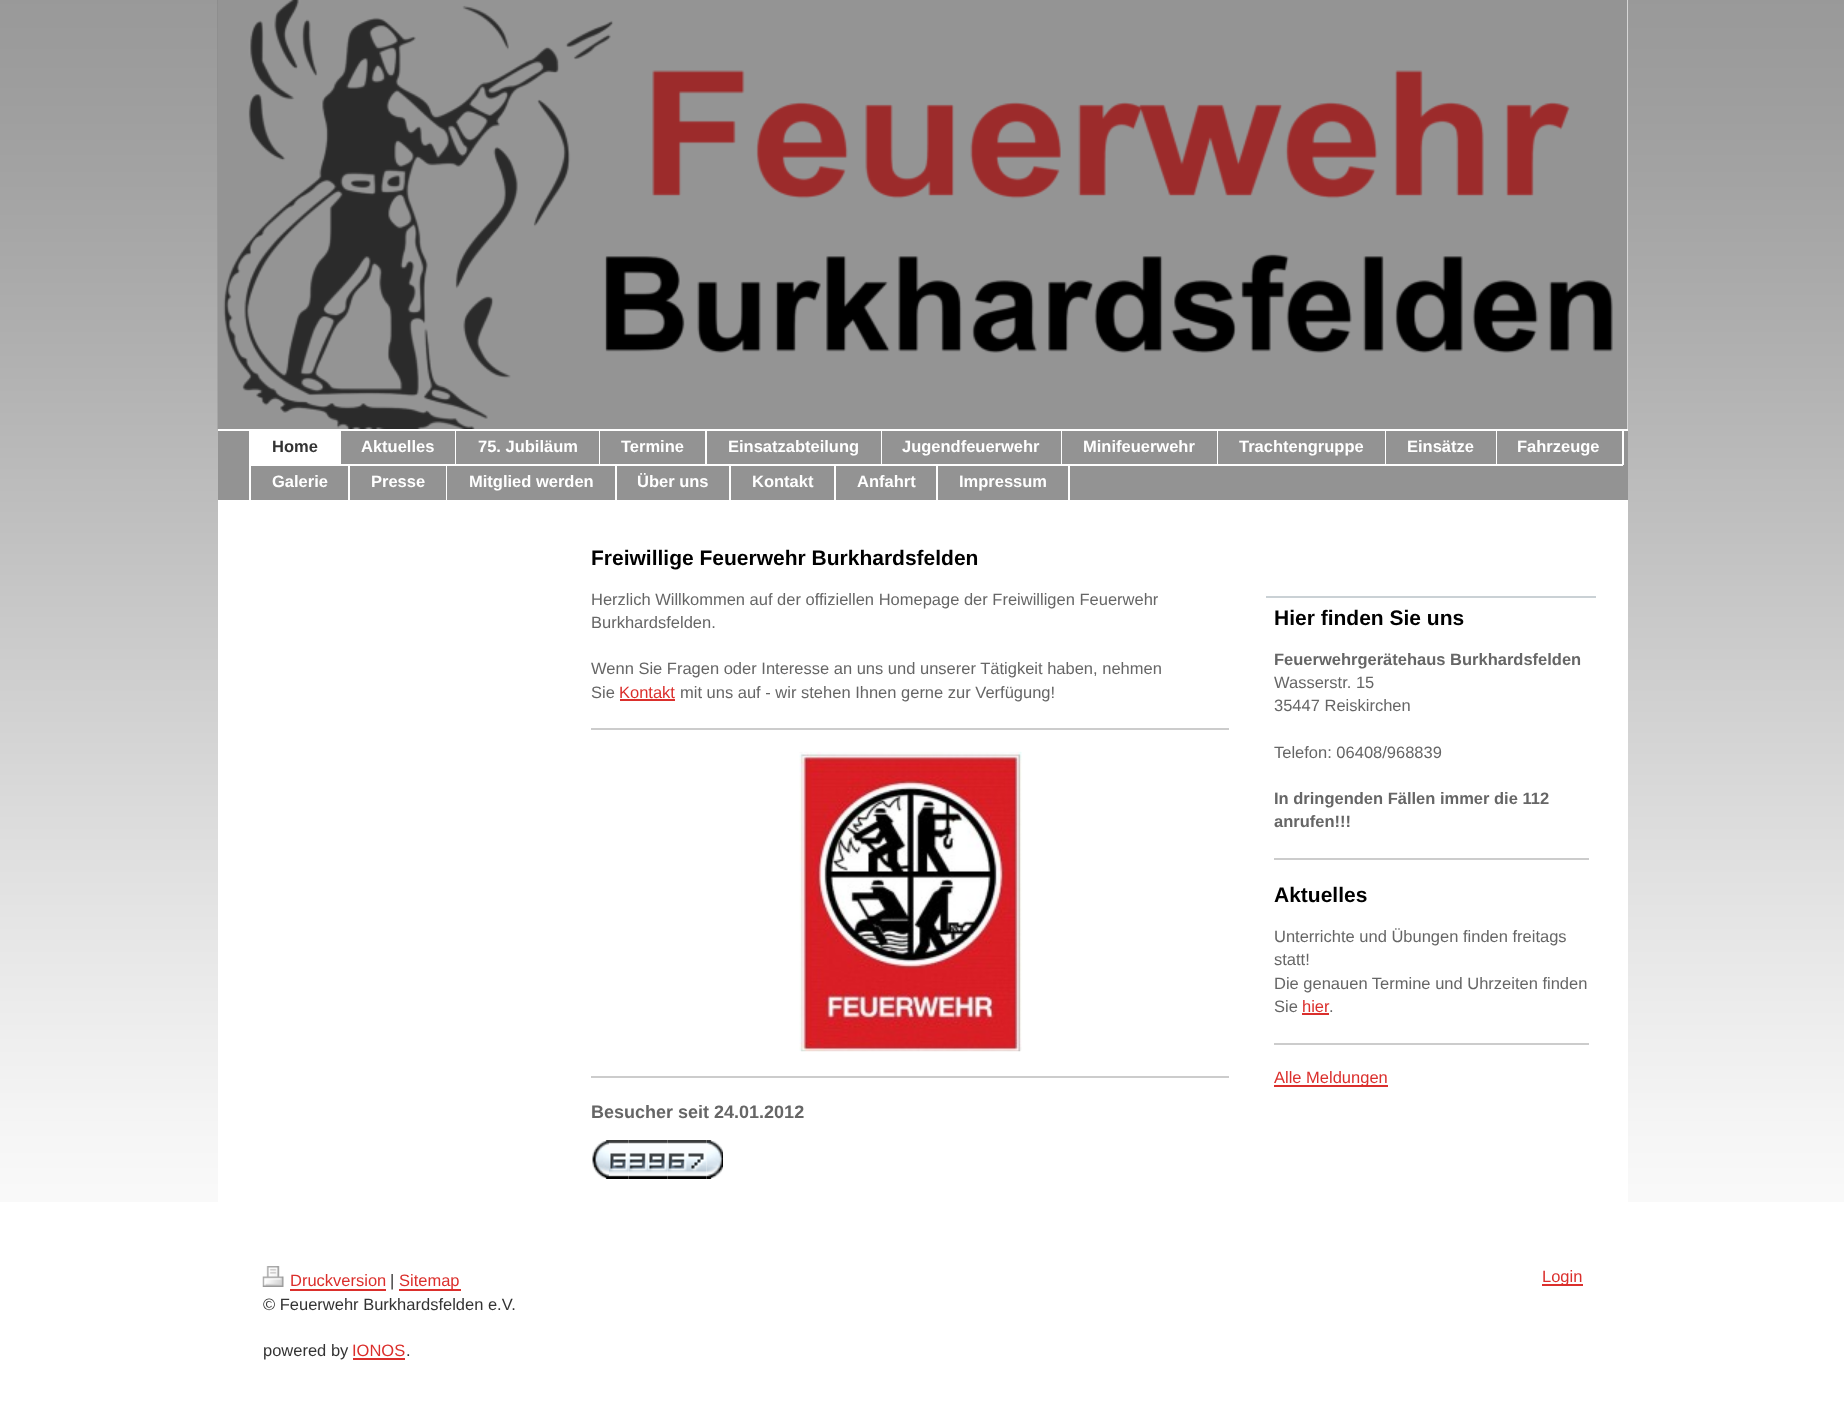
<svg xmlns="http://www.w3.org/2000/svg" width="1844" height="1406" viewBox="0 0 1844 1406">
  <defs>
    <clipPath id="clip1"><path d="M263 1266h1320v96H263z"/></clipPath>
  </defs>
  <rect width="100%" height="100%" fill="#fff"/>
  <image x="0" y="0" width="1844" height="1202" href="img/1.png"/>
  <path d="M218 429h1410v773H218z" fill="#fff"/>
  <path d="M218 0h1410v429H218z" fill="#eee"/>
  <image x="217" y="0" width="1411" height="429" href="img/2.png"/>
  <path d="M218 431h1410v69H218z" fill="#939393"/>
  <path d="M249 429h2v71H249z" fill="#fff"/>
  <path d="M251 431h90v33H251z" fill="#fff"/>
  <path d="M455 429h1v36H455z" fill="#fff"/>
  <path d="M599 429h1v36H599z" fill="#fff"/>
  <path d="M705 429h2v36H705z" fill="#fff"/>
  <path d="M881 429h1v36H881z" fill="#fff"/>
  <path d="M1061 429h1v36H1061z" fill="#fff"/>
  <path d="M1217 429h1v36H1217z" fill="#fff"/>
  <path d="M1062 464h156v2H1062z" fill="#fff"/>
  <path d="M1385 429h1v36H1385z" fill="#fff"/>
  <path d="M1218 464h168v2H1218z" fill="#fff"/>
  <path d="M1496 429h1v36H1496z" fill="#fff"/>
  <path d="M1386 464h111v2H1386z" fill="#fff"/>
  <path d="M1622 429h2v36H1622z" fill="#fff"/>
  <path d="M1497 464h126v2H1497z" fill="#fff"/>
  <path d="M251 464h819v2H251z" fill="#fff"/>
  <path d="M348 464h2v37H348z" fill="#fff"/>
  <path d="M446 464h1v37H446z" fill="#fff"/>
  <path d="M615 464h2v37H615z" fill="#fff"/>
  <path d="M729 464h2v37H729z" fill="#fff"/>
  <path d="M834 464h2v37H834z" fill="#fff"/>
  <path d="M936 464h2v37H936z" fill="#fff"/>
  <path d="M1068 464h2v37H1068z" fill="#fff"/>
  <path d="M620 699h55v2H620z" fill="#db2f2c"/>
  <path d="M591 728h638v2H591z" fill="#ccc"/>
  <image x="799" y="751" width="223" height="301" href="img/3.png"/>
  <path d="M591 1076h638v2H591z" fill="#ccc"/>
  <image x="592" y="1140" width="17" height="39" href="img/4.png"/>
  <image x="609" y="1140" width="20" height="39" href="img/5.png"/>
  <image x="628" y="1140" width="20" height="39" href="img/6.png"/>
  <image x="648" y="1140" width="20" height="39" href="img/7.png"/>
  <image x="667" y="1140" width="20" height="39" href="img/8.png"/>
  <image x="687" y="1140" width="20" height="39" href="img/9.png"/>
  <image x="706" y="1140" width="17" height="39" href="img/10.png"/>
  <path d="M1266 596h330v2H1266z" fill="#cad1d5"/>
  <path d="M1274 858h315v2H1274z" fill="#ccc"/>
  <path d="M1302 1013h27v2H1302z" fill="#db2f2c"/>
  <path d="M1274 1043h315v2H1274z" fill="#ccc"/>
  <path d="M1274 1085h114v2H1274z" fill="#db2f2c"/>
  <image x="262" y="1266" width="22" height="21" href="img/11.png"/>
  <path d="M290 1289h96v2H290z" fill="#db2f2c"/>
  <path d="M399 1289h62v2H399z" fill="#db2f2c"/>
  <path d="M353 1358h52v2H353z" fill="#db2f2c"/>
  <path d="M1542 1284h41v2H1542z" fill="#db2f2c"/>
  <text x="272" y="452" font-family="Liberation Sans" font-size="16.5" font-weight="bold" fill="#333">Home</text>
  <g font-family="Liberation Sans" font-size="16.5" font-weight="bold" fill="#fff">
    <text x="361" y="452">Aktuelles</text>
    <text x="478" y="452">75. Jubiläum</text>
    <text x="621" y="452">Termine</text>
    <text x="728" y="452">Einsatzabteilung</text>
    <text x="902" y="452">Jugendfeuerwehr</text>
    <text x="1083" y="452">Minifeuerwehr</text>
    <text x="1239" y="452">Trachtengruppe</text>
    <text x="1407" y="452">Einsätze</text>
    <text x="1517" y="452">Fahrzeuge</text>
    <text x="272" y="487">Galerie</text>
    <text x="371" y="487">Presse</text>
    <text x="469" y="487">Mitglied werden</text>
    <text x="637" y="487">Über uns</text>
    <text x="752" y="487">Kontakt</text>
    <text x="857" y="487">Anfahrt</text>
    <text x="959" y="487">Impressum</text>
  </g>
  <text x="591" y="565" font-family="Liberation Sans" font-size="21" font-weight="bold" fill="#000">Freiwillige Feuerwehr Burkhardsfelden</text>
  <g font-family="Liberation Sans" font-size="16.5" fill="#666">
    <text x="591" y="605">Herzlich Willkommen auf der offiziellen Homepage der Freiwilligen Feuerwehr</text>
    <text x="591" y="628">Burkhardsfelden.</text>
    <text x="591" y="674">Wenn Sie Fragen oder Interesse an uns und unserer Tätigkeit haben, nehmen</text>
    <text x="591" y="698">Sie</text>
  </g>
  <text x="619" y="698" font-family="Liberation Sans" font-size="16.5" fill="#db2f2c">Kontakt</text>
  <text x="680" y="698" font-family="Liberation Sans" font-size="16.5" fill="#666">mit uns auf - wir stehen Ihnen gerne zur Verfügung!</text>
  <text x="591" y="1118" font-family="Liberation Sans" font-size="18" font-weight="bold" fill="#666">Besucher seit 24.01.2012</text>
  <text x="1274" y="625" font-family="Liberation Sans" font-size="21" font-weight="bold" fill="#000">Hier finden Sie uns</text>
  <text x="1274" y="665" font-family="Liberation Sans" font-size="16.5" font-weight="bold" fill="#666">Feuerwehrgerätehaus Burkhardsfelden</text>
  <g font-family="Liberation Sans" font-size="16.5" fill="#666">
    <text x="1274" y="688">Wasserstr. 15</text>
    <text x="1274" y="711">35447 Reiskirchen</text>
    <text x="1274" y="758">Telefon: 06408/968839</text>
  </g>
  <g font-family="Liberation Sans" font-size="16.5" font-weight="bold" fill="#666">
    <text x="1274" y="804">In dringenden Fällen immer die 112</text>
    <text x="1274" y="827">anrufen!!!</text>
  </g>
  <text x="1274" y="902" font-family="Liberation Sans" font-size="21" font-weight="bold" fill="#000">Aktuelles</text>
  <g font-family="Liberation Sans" font-size="16.5" fill="#666">
    <text x="1274" y="942">Unterrichte und Übungen finden freitags</text>
    <text x="1274" y="965">statt!</text>
    <text x="1274" y="989">Die genauen Termine und Uhrzeiten finden</text>
    <text x="1274" y="1012">Sie</text>
  </g>
  <text x="1302" y="1012" font-family="Liberation Sans" font-size="16.5" fill="#db2f2c">hier</text>
  <text x="1329" y="1012" font-family="Liberation Sans" font-size="16.5" fill="#666">.</text>
  <g font-family="Liberation Sans" font-size="16.5" fill="#db2f2c">
    <text x="1274" y="1083">Alle Meldungen</text>
    <text x="290" y="1286">Druckversion</text>
  </g>
  <text x="390" y="1286" font-family="Liberation Sans" font-size="16.5" fill="#333">|</text>
  <text x="399" y="1286" font-family="Liberation Sans" font-size="16.5" fill="#db2f2c">Sitemap</text>
  <g clip-path="url(#clip1)">
    <text x="263" y="1310" font-family="Liberation Sans" font-size="16.5" fill="#333">© Feuerwehr Burkhardsfelden e.V.</text>
  </g>
  <text x="263" y="1356" font-family="Liberation Sans" font-size="16.5" fill="#333">powered by</text>
  <text x="352" y="1356" font-family="Liberation Sans" font-size="16.5" fill="#db2f2c">IONOS</text>
  <text x="406" y="1356" font-family="Liberation Sans" font-size="16.5" fill="#333">.</text>
  <text x="1542" y="1282" font-family="Liberation Sans" font-size="16.5" fill="#db2f2c">Login</text>
</svg>
